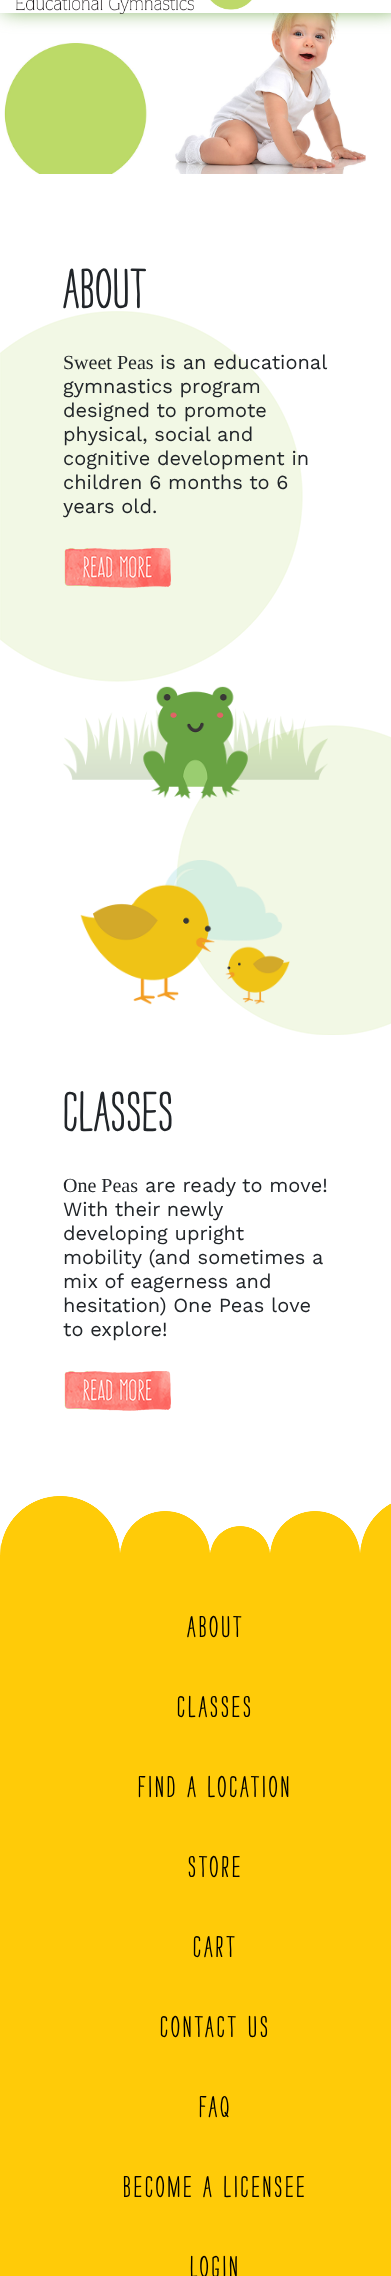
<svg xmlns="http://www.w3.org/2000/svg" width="391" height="2276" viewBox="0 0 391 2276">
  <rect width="100%" height="100%" fill="#fff"/>
  <image x="4" y="13" width="362" height="161" href="img/2.png"/>
  <path d="M4 -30h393v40H4z" fill="#69a343" filter="blur(10px)"/>
  <path d="M0 0h391v13H0z" fill="#fff"/>
  <image x="16" y="0" width="236" height="14" href="img/1.png"/>
  <image x="0" y="311" width="391" height="724" href="img/3.png"/>
  <image x="64" y="548" width="107" height="40" href="img/4.png"/>
  <image x="63" y="686" width="265" height="113" href="img/5.png"/>
  <image x="80" y="860" width="210" height="145" href="img/6.png"/>
  <image x="64" y="1371" width="107" height="40" href="img/7.png"/>
  <image x="0" y="1496" width="391" height="59" href="img/8.png"/>
  <path d="M0 1555h391v721H0z" fill="#ffcb08"/>
  <text x="63" y="308" font-family="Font" font-size="60" font-weight="bold" letter-spacing="2.75" fill="#212529">ABOUT</text>
  <text x="63" y="369" font-family="Liberation Serif" font-size="20" fill="#212529">Sweet Peas</text>
  <g font-family="Work Sans" font-size="20" fill="#212529">
    <text x="160" y="369">is an educational</text>
    <text x="63" y="393">gymnastics program</text>
    <text x="63" y="417">designed to promote</text>
    <text x="63" y="441">physical, social and</text>
    <text x="63" y="465">cognitive development in</text>
    <text x="63" y="489">children 6 months to 6</text>
    <text x="63" y="513">years old.</text>
  </g>
  <text x="63" y="1131" font-family="Font" font-size="60" font-weight="bold" letter-spacing="2.75" fill="#212529">CLASSES</text>
  <text x="63" y="1192" font-family="Liberation Serif" font-size="20" fill="#212529">One Peas</text>
  <g font-family="Work Sans" font-size="20" fill="#212529">
    <text x="145" y="1192">are ready to move!</text>
    <text x="63" y="1216">With their newly</text>
    <text x="63" y="1240">developing upright</text>
    <text x="63" y="1264">mobility (and sometimes a</text>
    <text x="63" y="1288">mix of eagerness and</text>
    <text x="63" y="1312">hesitation) One Peas love</text>
    <text x="63" y="1336">to explore!</text>
  </g>
  <g font-family="Font" font-size="32" font-weight="bold" letter-spacing="4" fill="#000">
    <text x="187" y="1637">ABOUT</text>
    <text x="177" y="1717">CLASSES</text>
    <text x="138" y="1797">FIND A LOCATION</text>
    <text x="188" y="1877">STORE</text>
    <text x="193" y="1957">CART</text>
    <text x="160" y="2037">CONTACT US</text>
    <text x="199" y="2117">FAQ</text>
    <text x="123" y="2197">BECOME A LICENSEE</text>
    <text x="190" y="2277">LOGIN</text>
  </g>
</svg>
